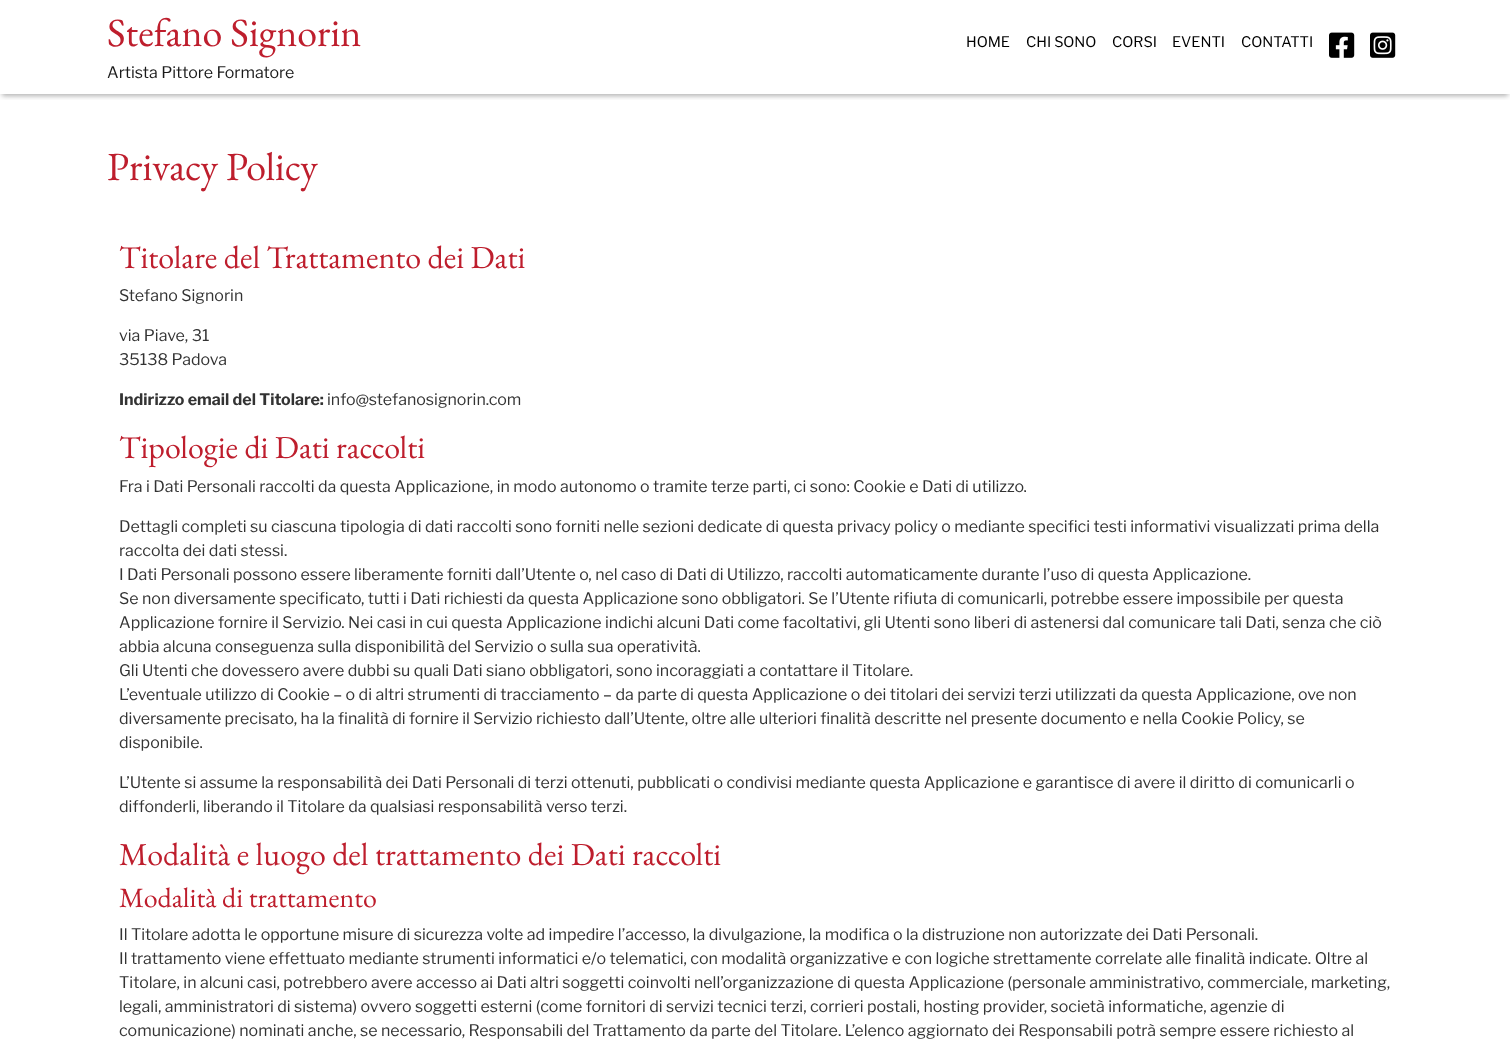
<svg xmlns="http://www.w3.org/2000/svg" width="1510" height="1044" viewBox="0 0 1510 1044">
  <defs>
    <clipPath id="clip1"><path d="M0 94h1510v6H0z"/></clipPath>
  </defs>
  <rect width="100%" height="100%" fill="#fff"/>
  <g clip-path="url(#clip1)">
    <path d="M2 6h1506v90H2z" fill="#0000004d" filter="blur(2.5px)"/>
  </g>
  <image x="1329" y="32" width="26" height="26" href="img/1.png"/>
  <image x="1370" y="32" width="26" height="26" href="img/2.png"/>
  <text x="107" y="46" font-family="EB Garamond" font-size="40" fill="#be1e2d">Stefano Signorin</text>
  <text x="107" y="78" font-family="Libre Franklin" font-size="16" fill="#1a1a1a">Artista Pittore Formatore</text>
  <g font-family="Libre Franklin" font-size="14.5" fill="#000">
    <text x="966" y="47">HOME</text>
    <text x="1026" y="47">CHI SONO</text>
    <text x="1112" y="47">CORSI</text>
    <text x="1172" y="47">EVENTI</text>
    <text x="1241" y="47">CONTATTI</text>
  </g>
  <text x="107" y="180" font-family="EB Garamond" font-size="40" fill="#be1e2d">Privacy Policy</text>
  <text x="119" y="268" font-family="EB Garamond" font-size="32" fill="#be1e2d">Titolare del Trattamento dei Dati</text>
  <g font-family="Libre Franklin" font-size="16" fill="#333">
    <text x="119" y="301">Stefano Signorin</text>
    <text x="119" y="341">via Piave, 31</text>
    <text x="119" y="365">35138 Padova</text>
  </g>
  <text x="119" y="405" font-family="Libre Franklin" font-size="16" font-weight="bold" fill="#333">Indirizzo email del Titolare:</text>
  <text x="327" y="405" font-family="Libre Franklin" font-size="16" fill="#333">info@stefanosignorin.com</text>
  <text x="119" y="458" font-family="EB Garamond" font-size="32" fill="#be1e2d">Tipologie di Dati raccolti</text>
  <g font-family="Libre Franklin" font-size="16" fill="#333">
    <text x="119" y="492">Fra i Dati Personali raccolti da questa Applicazione, in modo autonomo o tramite terze parti, ci sono: Cookie e Dati di utilizzo.</text>
    <text x="119" y="532">Dettagli completi su ciascuna tipologia di dati raccolti sono forniti nelle sezioni dedicate di questa privacy policy o mediante specifici testi informativi visualizzati prima della</text>
    <text x="119" y="556">raccolta dei dati stessi.</text>
    <text x="119" y="580">I Dati Personali possono essere liberamente forniti dall’Utente o, nel caso di Dati di Utilizzo, raccolti automaticamente durante l’uso di questa Applicazione.</text>
    <text x="119" y="604">Se non diversamente specificato, tutti i Dati richiesti da questa Applicazione sono obbligatori. Se l’Utente rifiuta di comunicarli, potrebbe essere impossibile per questa</text>
    <text x="119" y="628">Applicazione fornire il Servizio. Nei casi in cui questa Applicazione indichi alcuni Dati come facoltativi, gli Utenti sono liberi di astenersi dal comunicare tali Dati, senza che ciò</text>
    <text x="119" y="652">abbia alcuna conseguenza sulla disponibilità del Servizio o sulla sua operatività.</text>
    <text x="119" y="676">Gli Utenti che dovessero avere dubbi su quali Dati siano obbligatori, sono incoraggiati a contattare il Titolare.</text>
    <text x="119" y="700">L’eventuale utilizzo di Cookie – o di altri strumenti di tracciamento – da parte di questa Applicazione o dei titolari dei servizi terzi utilizzati da questa Applicazione, ove non</text>
    <text x="119" y="724">diversamente precisato, ha la finalità di fornire il Servizio richiesto dall’Utente, oltre alle ulteriori finalità descritte nel presente documento e nella Cookie Policy, se</text>
    <text x="119" y="748">disponibile.</text>
    <text x="119" y="788">L’Utente si assume la responsabilità dei Dati Personali di terzi ottenuti, pubblicati o condivisi mediante questa Applicazione e garantisce di avere il diritto di comunicarli o</text>
    <text x="119" y="812">diffonderli, liberando il Titolare da qualsiasi responsabilità verso terzi.</text>
  </g>
  <text x="119" y="865" font-family="EB Garamond" font-size="32" fill="#be1e2d">Modalità e luogo del trattamento dei Dati raccolti</text>
  <text x="119" y="907" font-family="EB Garamond" font-size="28" fill="#be1e2d">Modalità di trattamento</text>
  <g font-family="Libre Franklin" font-size="16" fill="#333">
    <text x="119" y="940">Il Titolare adotta le opportune misure di sicurezza volte ad impedire l’accesso, la divulgazione, la modifica o la distruzione non autorizzate dei Dati Personali.</text>
    <text x="119" y="964">Il trattamento viene effettuato mediante strumenti informatici e/o telematici, con modalità organizzative e con logiche strettamente correlate alle finalità indicate. Oltre al</text>
    <text x="119" y="988">Titolare, in alcuni casi, potrebbero avere accesso ai Dati altri soggetti coinvolti nell’organizzazione di questa Applicazione (personale amministrativo, commerciale, marketing,</text>
    <text x="119" y="1012">legali, amministratori di sistema) ovvero soggetti esterni (come fornitori di servizi tecnici terzi, corrieri postali, hosting provider, società informatiche, agenzie di</text>
    <text x="119" y="1036">comunicazione) nominati anche, se necessario, Responsabili del Trattamento da parte del Titolare. L’elenco aggiornato dei Responsabili potrà sempre essere richiesto al</text>
  </g>
</svg>
